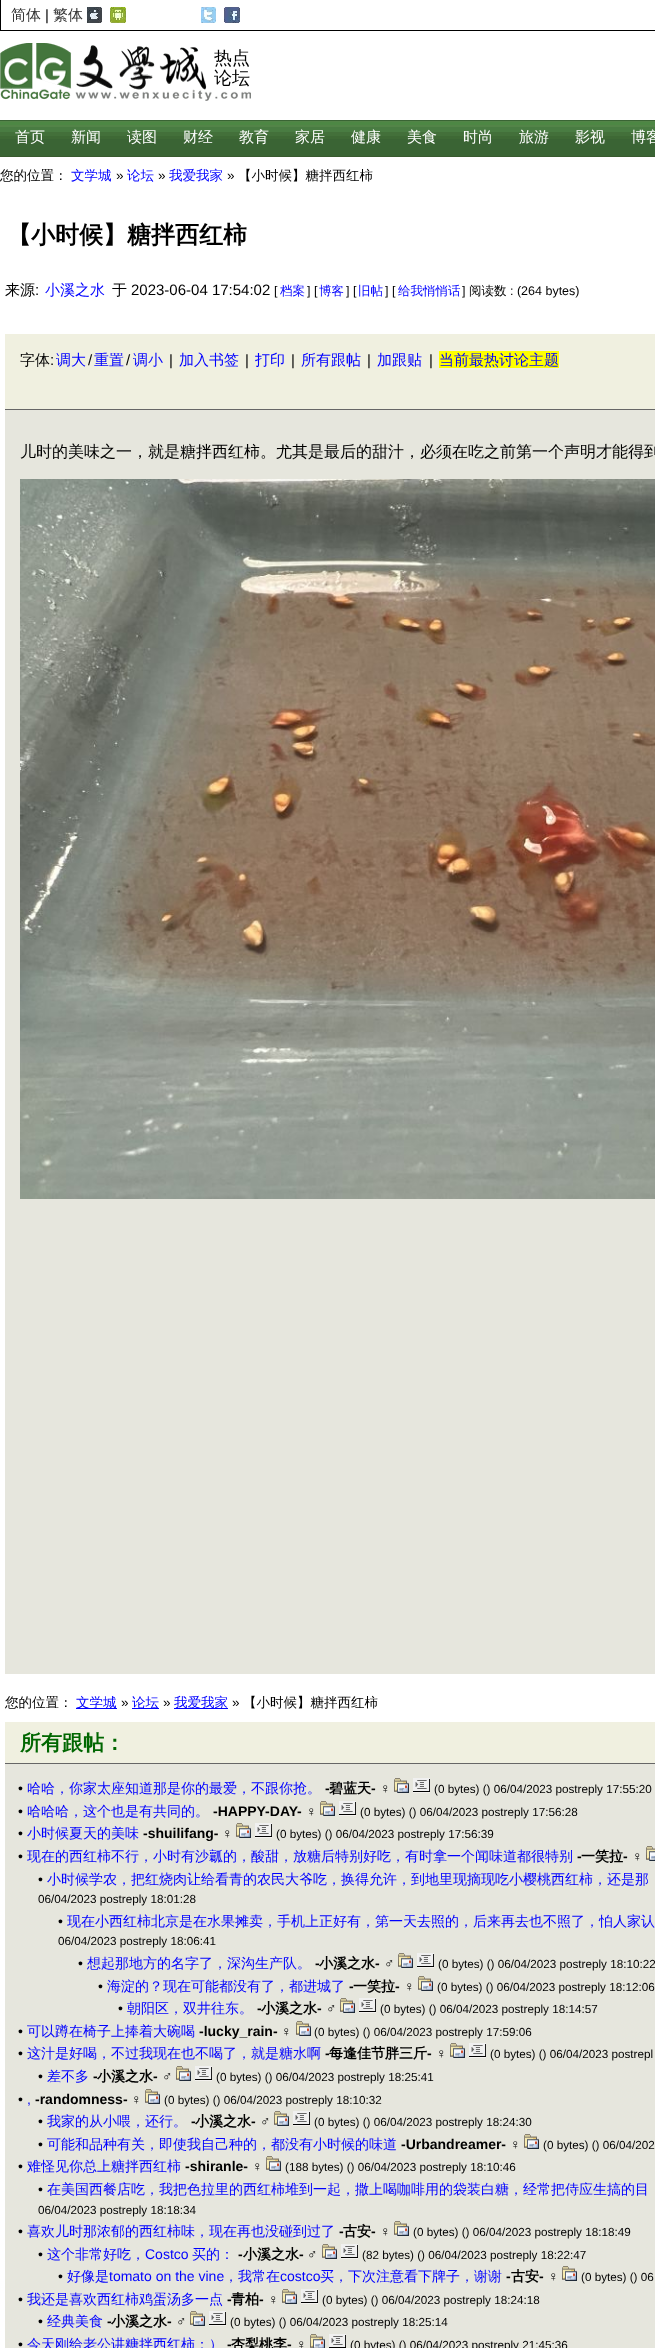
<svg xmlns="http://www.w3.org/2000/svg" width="655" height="2348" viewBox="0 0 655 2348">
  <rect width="100%" height="100%" fill="#fff"/>
  <path d="M0 30h655v1H0z" fill="#000"/>
  <path d="M0 0h1v31H0z" fill="#000"/>
  <image x="87" y="7" width="15" height="16" href="img/1.png"/>
  <image x="110" y="7" width="16" height="16" href="img/2.png"/>
  <image x="201" y="7" width="15" height="16" href="img/3.png"/>
  <image x="224" y="7" width="16" height="16" href="img/4.png"/>
  <image x="0" y="43" width="251" height="58" href="img/5.png"/>
  <image x="0" y="120" width="655" height="37" href="img/6.png"/>
  <path d="M5 334h650v75H5z" fill="#f0f0e0"/>
  <path d="M439 351h120v17H439z" fill="#ff0"/>
  <path d="M5 410h650v1264H5z" fill="#e6e6dd"/>
  <path d="M5 409h650v1H5z" fill="#666"/>
  <image x="20" y="479" width="635" height="720" href="img/7.png"/>
  <path d="M76 1708h41v1H76z" fill="#00f"/>
  <path d="M132 1708h27v1H132z" fill="#00f"/>
  <path d="M174 1708h54v1H174z" fill="#00f"/>
  <path d="M5 1722h650v41H5z" fill="#f0f0e0"/>
  <path d="M5 1764h650v584H5z" fill="#e6e6dd"/>
  <path d="M5 1763h650v1H5z" fill="#666"/>
  <image x="394" y="1778" width="15" height="15" href="img/8.png"/>
  <image x="413" y="1778" width="17" height="15" href="img/9.png"/>
  <image x="320" y="1801" width="15" height="15" href="img/8.png"/>
  <image x="339" y="1801" width="17" height="15" href="img/9.png"/>
  <image x="236" y="1823" width="15" height="15" href="img/8.png"/>
  <image x="255" y="1823" width="17" height="15" href="img/9.png"/>
  <image x="646" y="1846" width="9" height="15" href="img/10.png"/>
  <image x="398" y="1953" width="15" height="15" href="img/8.png"/>
  <image x="417" y="1953" width="17" height="15" href="img/9.png"/>
  <image x="418" y="1976" width="15" height="15" href="img/8.png"/>
  <image x="340" y="1998" width="15" height="15" href="img/8.png"/>
  <image x="359" y="1998" width="17" height="15" href="img/9.png"/>
  <image x="296" y="2021" width="15" height="15" href="img/8.png"/>
  <image x="450" y="2043" width="15" height="15" href="img/8.png"/>
  <image x="469" y="2043" width="17" height="15" href="img/9.png"/>
  <image x="176" y="2066" width="15" height="15" href="img/8.png"/>
  <image x="195" y="2066" width="17" height="15" href="img/9.png"/>
  <image x="145" y="2089" width="15" height="15" href="img/8.png"/>
  <image x="274" y="2111" width="15" height="15" href="img/8.png"/>
  <image x="293" y="2111" width="17" height="15" href="img/9.png"/>
  <image x="524" y="2134" width="15" height="15" href="img/8.png"/>
  <image x="266" y="2156" width="15" height="15" href="img/8.png"/>
  <image x="394" y="2221" width="15" height="15" href="img/8.png"/>
  <image x="322" y="2244" width="15" height="15" href="img/8.png"/>
  <image x="341" y="2244" width="17" height="15" href="img/9.png"/>
  <image x="562" y="2266" width="15" height="15" href="img/8.png"/>
  <image x="282" y="2289" width="15" height="15" href="img/8.png"/>
  <image x="301" y="2289" width="17" height="15" href="img/9.png"/>
  <image x="190" y="2311" width="15" height="15" href="img/8.png"/>
  <image x="209" y="2311" width="17" height="15" href="img/9.png"/>
  <image x="310" y="2334" width="15" height="14" href="img/11.png"/>
  <image x="329" y="2334" width="17" height="14" href="img/12.png"/>
  <text x="11" y="20" font-family="WenQuanYi Zen Hei" font-size="15" font-weight="500" fill="#333">简体</text>
  <text x="45" y="20" font-family="Liberation Sans" font-size="15" fill="#000">|</text>
  <text x="53" y="20" font-family="WenQuanYi Zen Hei" font-size="15" font-weight="500" fill="#333">繁体</text>
  <g font-family="WenQuanYi Zen Hei" font-size="18" font-weight="500" fill="#000">
    <text x="214" y="64">热点</text>
    <text x="214" y="84">论坛</text>
  </g>
  <g font-family="WenQuanYi Zen Hei" font-size="15" font-weight="500" fill="#fff">
    <text x="15" y="142">首页</text>
    <text x="71" y="142">新闻</text>
    <text x="127" y="142">读图</text>
    <text x="183" y="142">财经</text>
    <text x="239" y="142">教育</text>
    <text x="295" y="142">家居</text>
    <text x="351" y="142">健康</text>
    <text x="407" y="142">美食</text>
    <text x="463" y="142">时尚</text>
    <text x="519" y="142">旅游</text>
    <text x="575" y="142">影视</text>
    <text x="631" y="142">博客</text>
  </g>
  <text x="0" y="180" font-family="WenQuanYi Zen Hei" font-size="13.5" font-weight="500" fill="#000">您的位置：</text>
  <text x="71" y="180" font-family="WenQuanYi Zen Hei" font-size="13.5" font-weight="500" fill="#00f">文学城</text>
  <text x="116" y="180" font-family="Liberation Sans" font-size="13.5" fill="#000">»</text>
  <text x="127" y="180" font-family="WenQuanYi Zen Hei" font-size="13.5" font-weight="500" fill="#00f">论坛</text>
  <text x="158" y="180" font-family="Liberation Sans" font-size="13.5" fill="#000">»</text>
  <text x="169" y="180" font-family="WenQuanYi Zen Hei" font-size="13.5" font-weight="500" fill="#00f">我爱我家</text>
  <text x="227" y="180" font-family="Liberation Sans" font-size="13.5" fill="#000">»</text>
  <text x="238" y="180" font-family="WenQuanYi Zen Hei" font-size="13.5" font-weight="500" fill="#000">【小时候】糖拌西红柿</text>
  <text x="7" y="243" font-family="WenQuanYi Zen Hei" font-size="24" font-weight="bold" fill="#000">【小时候】糖拌西红柿</text>
  <text x="5" y="295" font-family="WenQuanYi Zen Hei" font-size="15" font-weight="500" fill="#000">来源</text>
  <text x="35" y="295" font-family="Liberation Sans" font-size="15" fill="#000">:</text>
  <text x="45" y="295" font-family="WenQuanYi Zen Hei" font-size="15" font-weight="500" fill="#00f">小溪之水</text>
  <text x="112" y="295" font-family="WenQuanYi Zen Hei" font-size="15" font-weight="500" fill="#000">于</text>
  <text x="131" y="295" font-family="Liberation Sans" font-size="15" fill="#000">2023-06-04 17:54:02</text>
  <text x="274" y="295" font-family="Liberation Sans" font-size="12.5" fill="#000">[</text>
  <text x="280" y="295" font-family="WenQuanYi Zen Hei" font-size="12.5" font-weight="500" fill="#00f">档案</text>
  <text x="307" y="295" font-family="Liberation Sans" font-size="12.5" fill="#000">] [</text>
  <text x="319" y="295" font-family="WenQuanYi Zen Hei" font-size="12.5" font-weight="500" fill="#00f">博客</text>
  <text x="346" y="295" font-family="Liberation Sans" font-size="12.5" fill="#000">] [</text>
  <text x="358" y="295" font-family="WenQuanYi Zen Hei" font-size="12.5" font-weight="500" fill="#00f">旧帖</text>
  <text x="385" y="295" font-family="Liberation Sans" font-size="12.5" fill="#000">] [</text>
  <text x="398" y="295" font-family="WenQuanYi Zen Hei" font-size="12.5" font-weight="500" fill="#00f">给我悄悄话</text>
  <text x="462" y="295" font-family="Liberation Sans" font-size="12.5" fill="#000">]</text>
  <text x="469" y="295" font-family="WenQuanYi Zen Hei" font-size="12.5" font-weight="500" fill="#000">阅读数</text>
  <text x="510" y="295" font-family="Liberation Sans" font-size="12.5" fill="#000">: (264 bytes)</text>
  <text x="20" y="365" font-family="WenQuanYi Zen Hei" font-size="15" font-weight="500" fill="#000">字体</text>
  <text x="50" y="365" font-family="Liberation Sans" font-size="15" fill="#000">:</text>
  <text x="56" y="365" font-family="WenQuanYi Zen Hei" font-size="15" font-weight="500" fill="#00f">调大</text>
  <text x="88" y="365" font-family="Liberation Sans" font-size="15" fill="#000">/</text>
  <text x="94" y="365" font-family="WenQuanYi Zen Hei" font-size="15" font-weight="500" fill="#00f">重置</text>
  <text x="126" y="365" font-family="Liberation Sans" font-size="15" fill="#000">/</text>
  <text x="133" y="365" font-family="WenQuanYi Zen Hei" font-size="15" font-weight="500" fill="#00f">调小</text>
  <text x="169" y="365" font-family="Liberation Sans" font-size="15" fill="#000">|</text>
  <text x="179" y="365" font-family="WenQuanYi Zen Hei" font-size="15" font-weight="500" fill="#00f">加入书签</text>
  <text x="245" y="365" font-family="Liberation Sans" font-size="15" fill="#000">|</text>
  <text x="255" y="365" font-family="WenQuanYi Zen Hei" font-size="15" font-weight="500" fill="#00f">打印</text>
  <text x="291" y="365" font-family="Liberation Sans" font-size="15" fill="#000">|</text>
  <text x="301" y="365" font-family="WenQuanYi Zen Hei" font-size="15" font-weight="500" fill="#00f">所有跟帖</text>
  <text x="367" y="365" font-family="Liberation Sans" font-size="15" fill="#000">|</text>
  <text x="377" y="365" font-family="WenQuanYi Zen Hei" font-size="15" font-weight="500" fill="#00f">加跟贴</text>
  <text x="429" y="365" font-family="Liberation Sans" font-size="15" fill="#000">|</text>
  <text x="439" y="365" font-family="WenQuanYi Zen Hei" font-size="15" font-weight="500" fill="#00f">当前最热讨论主题</text>
  <text x="20" y="457" font-family="WenQuanYi Zen Hei" font-size="16" font-weight="500" fill="#000">儿时的美味之一，就是糖拌西红柿。尤其是最后的甜汁，必须在吃之前第一个声明才能得到</text>
  <text x="5" y="1707" font-family="WenQuanYi Zen Hei" font-size="13.5" font-weight="500" fill="#000">您的位置：</text>
  <text x="76" y="1707" font-family="WenQuanYi Zen Hei" font-size="13.5" font-weight="500" fill="#00f">文学城</text>
  <text x="121" y="1707" font-family="Liberation Sans" font-size="13.5" fill="#000">»</text>
  <text x="132" y="1707" font-family="WenQuanYi Zen Hei" font-size="13.5" font-weight="500" fill="#00f">论坛</text>
  <text x="163" y="1707" font-family="Liberation Sans" font-size="13.5" fill="#000">»</text>
  <text x="174" y="1707" font-family="WenQuanYi Zen Hei" font-size="13.5" font-weight="500" fill="#00f">我爱我家</text>
  <text x="232" y="1707" font-family="Liberation Sans" font-size="13.5" fill="#000">»</text>
  <text x="243" y="1707" font-family="WenQuanYi Zen Hei" font-size="13.5" font-weight="500" fill="#000">【小时候】糖拌西红柿</text>
  <text x="20" y="1750" font-family="WenQuanYi Zen Hei" font-size="21" font-weight="bold" fill="#060">所有跟帖：</text>
  <text x="18" y="1793" font-family="Liberation Sans" font-size="14" fill="#000">•</text>
  <text x="27" y="1793" font-family="WenQuanYi Zen Hei" font-size="14" font-weight="500" fill="#00f">哈哈，你家太座知道那是你的最爱，不跟你抢。</text>
  <text x="325" y="1793" font-family="Liberation Sans" font-size="14" font-weight="bold" fill="#000">-</text>
  <text x="329" y="1793" font-family="WenQuanYi Zen Hei" font-size="14" font-weight="bold" fill="#000">碧蓝天</text>
  <text x="371" y="1793" font-family="Liberation Sans" font-size="14" font-weight="bold" fill="#000">-</text>
  <text x="380" y="1793" font-family="Liberation Sans" font-size="14" fill="#000">♀</text>
  <text x="434" y="1793" font-family="Liberation Sans" font-size="11.7" fill="#000">(0 bytes) () 06/04/2023 postreply 17:55:20</text>
  <text x="18" y="1816" font-family="Liberation Sans" font-size="14" fill="#000">•</text>
  <text x="27" y="1816" font-family="WenQuanYi Zen Hei" font-size="14" font-weight="500" fill="#00f">哈哈哈，这个也是有共同的。</text>
  <g font-family="Liberation Sans" font-size="14" font-weight="bold" fill="#000">
    <text x="213" y="1816">-HAPPY-DAY</text>
    <text x="297" y="1816">-</text>
  </g>
  <text x="306" y="1816" font-family="Liberation Sans" font-size="14" fill="#000">♀</text>
  <text x="360" y="1816" font-family="Liberation Sans" font-size="11.7" fill="#000">(0 bytes) () 06/04/2023 postreply 17:56:28</text>
  <text x="18" y="1838" font-family="Liberation Sans" font-size="14" fill="#000">•</text>
  <text x="27" y="1838" font-family="WenQuanYi Zen Hei" font-size="14" font-weight="500" fill="#00f">小时候夏天的美味</text>
  <text x="143" y="1838" font-family="Liberation Sans" font-size="14" font-weight="bold" fill="#000">-shuilifang-</text>
  <text x="222" y="1838" font-family="Liberation Sans" font-size="14" fill="#000">♀</text>
  <text x="276" y="1838" font-family="Liberation Sans" font-size="11.7" fill="#000">(0 bytes) () 06/04/2023 postreply 17:56:39</text>
  <text x="18" y="1861" font-family="Liberation Sans" font-size="14" fill="#000">•</text>
  <text x="27" y="1861" font-family="WenQuanYi Zen Hei" font-size="14" font-weight="500" fill="#00f">现在的西红柿不行，小时有沙瓤的，酸甜，放糖后特别好吃，有时拿一个闻味道都很特别</text>
  <text x="577" y="1861" font-family="Liberation Sans" font-size="14" font-weight="bold" fill="#000">-</text>
  <text x="581" y="1861" font-family="WenQuanYi Zen Hei" font-size="14" font-weight="bold" fill="#000">一笑拉</text>
  <text x="623" y="1861" font-family="Liberation Sans" font-size="14" font-weight="bold" fill="#000">-</text>
  <g font-family="Liberation Sans" font-size="14" fill="#000">
    <text x="632" y="1861">♀</text>
    <text x="38" y="1884">•</text>
  </g>
  <text x="47" y="1884" font-family="WenQuanYi Zen Hei" font-size="14" font-weight="500" fill="#00f">小时候学农，把红烧肉让给看青的农民大爷吃，换得允许，到地里现摘现吃小樱桃西红柿，还是那</text>
  <text x="38" y="1903" font-family="Liberation Sans" font-size="11.7" fill="#000">06/04/2023 postreply 18:01:28</text>
  <text x="58" y="1926" font-family="Liberation Sans" font-size="14" fill="#000">•</text>
  <text x="67" y="1926" font-family="WenQuanYi Zen Hei" font-size="14" font-weight="500" fill="#00f">现在小西红柿北京是在水果摊卖，手机上正好有，第一天去照的，后来再去也不照了，怕人家认</text>
  <text x="58" y="1945" font-family="Liberation Sans" font-size="11.7" fill="#000">06/04/2023 postreply 18:06:41</text>
  <text x="78" y="1968" font-family="Liberation Sans" font-size="14" fill="#000">•</text>
  <text x="87" y="1968" font-family="WenQuanYi Zen Hei" font-size="14" font-weight="500" fill="#00f">想起那地方的名字了，深沟生产队。</text>
  <text x="315" y="1968" font-family="Liberation Sans" font-size="14" font-weight="bold" fill="#000">-</text>
  <text x="319" y="1968" font-family="WenQuanYi Zen Hei" font-size="14" font-weight="bold" fill="#000">小溪之水</text>
  <text x="375" y="1968" font-family="Liberation Sans" font-size="14" font-weight="bold" fill="#000">-</text>
  <text x="384" y="1968" font-family="Liberation Sans" font-size="14" fill="#000">♂</text>
  <text x="438" y="1968" font-family="Liberation Sans" font-size="11.7" fill="#000">(0 bytes) () 06/04/2023 postreply 18:10:22</text>
  <text x="98" y="1991" font-family="Liberation Sans" font-size="14" fill="#000">•</text>
  <text x="107" y="1991" font-family="WenQuanYi Zen Hei" font-size="14" font-weight="500" fill="#00f">海淀的？现在可能都没有了，都进城了</text>
  <text x="349" y="1991" font-family="Liberation Sans" font-size="14" font-weight="bold" fill="#000">-</text>
  <text x="353" y="1991" font-family="WenQuanYi Zen Hei" font-size="14" font-weight="bold" fill="#000">一笑拉</text>
  <text x="395" y="1991" font-family="Liberation Sans" font-size="14" font-weight="bold" fill="#000">-</text>
  <text x="404" y="1991" font-family="Liberation Sans" font-size="14" fill="#000">♀</text>
  <text x="437" y="1991" font-family="Liberation Sans" font-size="11.7" fill="#000">(0 bytes) () 06/04/2023 postreply 18:12:06</text>
  <text x="118" y="2013" font-family="Liberation Sans" font-size="14" fill="#000">•</text>
  <text x="127" y="2013" font-family="WenQuanYi Zen Hei" font-size="14" font-weight="500" fill="#00f">朝阳区，双井往东。</text>
  <text x="257" y="2013" font-family="Liberation Sans" font-size="14" font-weight="bold" fill="#000">-</text>
  <text x="261" y="2013" font-family="WenQuanYi Zen Hei" font-size="14" font-weight="bold" fill="#000">小溪之水</text>
  <text x="317" y="2013" font-family="Liberation Sans" font-size="14" font-weight="bold" fill="#000">-</text>
  <text x="326" y="2013" font-family="Liberation Sans" font-size="14" fill="#000">♂</text>
  <text x="380" y="2013" font-family="Liberation Sans" font-size="11.7" fill="#000">(0 bytes) () 06/04/2023 postreply 18:14:57</text>
  <text x="18" y="2036" font-family="Liberation Sans" font-size="14" fill="#000">•</text>
  <text x="27" y="2036" font-family="WenQuanYi Zen Hei" font-size="14" font-weight="500" fill="#00f">可以蹲在椅子上捧着大碗喝</text>
  <text x="199" y="2036" font-family="Liberation Sans" font-size="14" font-weight="bold" fill="#000">-lucky_rain-</text>
  <text x="281" y="2036" font-family="Liberation Sans" font-size="14" fill="#000">♀</text>
  <text x="314" y="2036" font-family="Liberation Sans" font-size="11.7" fill="#000">(0 bytes) () 06/04/2023 postreply 17:59:06</text>
  <text x="18" y="2058" font-family="Liberation Sans" font-size="14" fill="#000">•</text>
  <text x="27" y="2058" font-family="WenQuanYi Zen Hei" font-size="14" font-weight="500" fill="#00f">这汁是好喝，不过我现在也不喝了，就是糖水啊</text>
  <text x="325" y="2058" font-family="Liberation Sans" font-size="14" font-weight="bold" fill="#000">-</text>
  <text x="329" y="2058" font-family="WenQuanYi Zen Hei" font-size="14" font-weight="bold" fill="#000">每逢佳节胖三斤</text>
  <text x="427" y="2058" font-family="Liberation Sans" font-size="14" font-weight="bold" fill="#000">-</text>
  <text x="436" y="2058" font-family="Liberation Sans" font-size="14" fill="#000">♀</text>
  <text x="490" y="2058" font-family="Liberation Sans" font-size="11.7" fill="#000">(0 bytes) () 06/04/2023 postrepl</text>
  <text x="38" y="2081" font-family="Liberation Sans" font-size="14" fill="#000">•</text>
  <text x="47" y="2081" font-family="WenQuanYi Zen Hei" font-size="14" font-weight="500" fill="#00f">差不多</text>
  <text x="93" y="2081" font-family="Liberation Sans" font-size="14" font-weight="bold" fill="#000">-</text>
  <text x="97" y="2081" font-family="WenQuanYi Zen Hei" font-size="14" font-weight="bold" fill="#000">小溪之水</text>
  <text x="153" y="2081" font-family="Liberation Sans" font-size="14" font-weight="bold" fill="#000">-</text>
  <text x="162" y="2081" font-family="Liberation Sans" font-size="14" fill="#000">♂</text>
  <text x="216" y="2081" font-family="Liberation Sans" font-size="11.7" fill="#000">(0 bytes) () 06/04/2023 postreply 18:25:41</text>
  <text x="18" y="2104" font-family="Liberation Sans" font-size="14" fill="#000">•</text>
  <text x="35" y="2104" font-family="Liberation Sans" font-size="14" font-weight="bold" fill="#000">-randomness-</text>
  <text x="131" y="2104" font-family="Liberation Sans" font-size="14" fill="#000">♀</text>
  <text x="164" y="2104" font-family="Liberation Sans" font-size="11.7" fill="#000">(0 bytes) () 06/04/2023 postreply 18:10:32</text>
  <text x="27" y="2104" font-family="Liberation Sans" font-size="14" fill="#00f">,</text>
  <text x="38" y="2126" font-family="Liberation Sans" font-size="14" fill="#000">•</text>
  <text x="47" y="2126" font-family="WenQuanYi Zen Hei" font-size="14" font-weight="500" fill="#00f">我家的从小喂，还行。</text>
  <text x="191" y="2126" font-family="Liberation Sans" font-size="14" font-weight="bold" fill="#000">-</text>
  <text x="195" y="2126" font-family="WenQuanYi Zen Hei" font-size="14" font-weight="bold" fill="#000">小溪之水</text>
  <text x="251" y="2126" font-family="Liberation Sans" font-size="14" font-weight="bold" fill="#000">-</text>
  <text x="260" y="2126" font-family="Liberation Sans" font-size="14" fill="#000">♂</text>
  <text x="314" y="2126" font-family="Liberation Sans" font-size="11.7" fill="#000">(0 bytes) () 06/04/2023 postreply 18:24:30</text>
  <text x="38" y="2149" font-family="Liberation Sans" font-size="14" fill="#000">•</text>
  <text x="47" y="2149" font-family="WenQuanYi Zen Hei" font-size="14" font-weight="500" fill="#00f">可能和品种有关，即使我自己种的，都没有小时候的味道</text>
  <text x="401" y="2149" font-family="Liberation Sans" font-size="14" font-weight="bold" fill="#000">-Urbandreamer-</text>
  <text x="510" y="2149" font-family="Liberation Sans" font-size="14" fill="#000">♀</text>
  <text x="543" y="2149" font-family="Liberation Sans" font-size="11.7" fill="#000">(0 bytes) () 06/04/202</text>
  <text x="18" y="2171" font-family="Liberation Sans" font-size="14" fill="#000">•</text>
  <text x="27" y="2171" font-family="WenQuanYi Zen Hei" font-size="14" font-weight="500" fill="#00f">难怪见你总上糖拌西红柿</text>
  <text x="185" y="2171" font-family="Liberation Sans" font-size="14" font-weight="bold" fill="#000">-shiranle-</text>
  <text x="252" y="2171" font-family="Liberation Sans" font-size="14" fill="#000">♀</text>
  <text x="285" y="2171" font-family="Liberation Sans" font-size="11.7" fill="#000">(188 bytes) () 06/04/2023 postreply 18:10:46</text>
  <text x="38" y="2194" font-family="Liberation Sans" font-size="14" fill="#000">•</text>
  <text x="47" y="2194" font-family="WenQuanYi Zen Hei" font-size="14" font-weight="500" fill="#00f">在美国西餐店吃，我把色拉里的西红柿堆到一起，撒上喝咖啡用的袋装白糖，经常把侍应生搞的目</text>
  <text x="38" y="2214" font-family="Liberation Sans" font-size="11.7" fill="#000">06/04/2023 postreply 18:18:34</text>
  <text x="18" y="2236" font-family="Liberation Sans" font-size="14" fill="#000">•</text>
  <text x="27" y="2236" font-family="WenQuanYi Zen Hei" font-size="14" font-weight="500" fill="#00f">喜欢儿时那浓郁的西红柿味，现在再也没碰到过了</text>
  <text x="339" y="2236" font-family="Liberation Sans" font-size="14" font-weight="bold" fill="#000">-</text>
  <text x="343" y="2236" font-family="WenQuanYi Zen Hei" font-size="14" font-weight="bold" fill="#000">古安</text>
  <text x="371" y="2236" font-family="Liberation Sans" font-size="14" font-weight="bold" fill="#000">-</text>
  <text x="380" y="2236" font-family="Liberation Sans" font-size="14" fill="#000">♀</text>
  <text x="413" y="2236" font-family="Liberation Sans" font-size="11.7" fill="#000">(0 bytes) () 06/04/2023 postreply 18:18:49</text>
  <text x="38" y="2259" font-family="Liberation Sans" font-size="14" fill="#000">•</text>
  <text x="47" y="2259" font-family="WenQuanYi Zen Hei" font-size="14" font-weight="500" fill="#00f">这个非常好吃，</text>
  <text x="145" y="2259" font-family="Liberation Sans" font-size="14" fill="#00f">Costco</text>
  <text x="192" y="2259" font-family="WenQuanYi Zen Hei" font-size="14" font-weight="500" fill="#00f">买的：</text>
  <text x="238" y="2259" font-family="Liberation Sans" font-size="14" font-weight="bold" fill="#000">-</text>
  <text x="243" y="2259" font-family="WenQuanYi Zen Hei" font-size="14" font-weight="bold" fill="#000">小溪之水</text>
  <text x="299" y="2259" font-family="Liberation Sans" font-size="14" font-weight="bold" fill="#000">-</text>
  <text x="307" y="2259" font-family="Liberation Sans" font-size="14" fill="#000">♂</text>
  <text x="362" y="2259" font-family="Liberation Sans" font-size="11.7" fill="#000">(82 bytes) () 06/04/2023 postreply 18:22:47</text>
  <text x="58" y="2281" font-family="Liberation Sans" font-size="14" fill="#000">•</text>
  <text x="67" y="2281" font-family="WenQuanYi Zen Hei" font-size="14" font-weight="500" fill="#00f">好像是</text>
  <text x="109" y="2281" font-family="Liberation Sans" font-size="14" fill="#00f">tomato on the vine</text>
  <text x="224" y="2281" font-family="WenQuanYi Zen Hei" font-size="14" font-weight="500" fill="#00f">，我常在</text>
  <text x="280" y="2281" font-family="Liberation Sans" font-size="14" fill="#00f">costco</text>
  <text x="320" y="2281" font-family="WenQuanYi Zen Hei" font-size="14" font-weight="500" fill="#00f">买，下次注意看下牌子，谢谢</text>
  <text x="506" y="2281" font-family="Liberation Sans" font-size="14" font-weight="bold" fill="#000">-</text>
  <text x="511" y="2281" font-family="WenQuanYi Zen Hei" font-size="14" font-weight="bold" fill="#000">古安</text>
  <text x="539" y="2281" font-family="Liberation Sans" font-size="14" font-weight="bold" fill="#000">-</text>
  <text x="548" y="2281" font-family="Liberation Sans" font-size="14" fill="#000">♀</text>
  <text x="581" y="2281" font-family="Liberation Sans" font-size="11.7" fill="#000">(0 bytes) () 06</text>
  <text x="18" y="2304" font-family="Liberation Sans" font-size="14" fill="#000">•</text>
  <text x="27" y="2304" font-family="WenQuanYi Zen Hei" font-size="14" font-weight="500" fill="#00f">我还是喜欢西红柿鸡蛋汤多一点</text>
  <text x="227" y="2304" font-family="Liberation Sans" font-size="14" font-weight="bold" fill="#000">-</text>
  <text x="231" y="2304" font-family="WenQuanYi Zen Hei" font-size="14" font-weight="bold" fill="#000">青柏</text>
  <text x="259" y="2304" font-family="Liberation Sans" font-size="14" font-weight="bold" fill="#000">-</text>
  <text x="268" y="2304" font-family="Liberation Sans" font-size="14" fill="#000">♀</text>
  <text x="322" y="2304" font-family="Liberation Sans" font-size="11.7" fill="#000">(0 bytes) () 06/04/2023 postreply 18:24:18</text>
  <text x="38" y="2326" font-family="Liberation Sans" font-size="14" fill="#000">•</text>
  <text x="47" y="2326" font-family="WenQuanYi Zen Hei" font-size="14" font-weight="500" fill="#00f">经典美食</text>
  <text x="107" y="2326" font-family="Liberation Sans" font-size="14" font-weight="bold" fill="#000">-</text>
  <text x="111" y="2326" font-family="WenQuanYi Zen Hei" font-size="14" font-weight="bold" fill="#000">小溪之水</text>
  <text x="167" y="2326" font-family="Liberation Sans" font-size="14" font-weight="bold" fill="#000">-</text>
  <text x="176" y="2326" font-family="Liberation Sans" font-size="14" fill="#000">♂</text>
  <text x="230" y="2326" font-family="Liberation Sans" font-size="11.7" fill="#000">(0 bytes) () 06/04/2023 postreply 18:25:14</text>
  <text x="18" y="2349" font-family="Liberation Sans" font-size="14" fill="#000">•</text>
  <text x="27" y="2349" font-family="WenQuanYi Zen Hei" font-size="14" font-weight="500" fill="#00f">今天刚给老公讲糖拌西红柿：）</text>
  <text x="227" y="2349" font-family="Liberation Sans" font-size="14" font-weight="bold" fill="#000">-</text>
  <text x="231" y="2349" font-family="WenQuanYi Zen Hei" font-size="14" font-weight="bold" fill="#000">杏梨桃李</text>
  <text x="287" y="2349" font-family="Liberation Sans" font-size="14" font-weight="bold" fill="#000">-</text>
  <text x="296" y="2349" font-family="Liberation Sans" font-size="14" fill="#000">♀</text>
  <text x="350" y="2349" font-family="Liberation Sans" font-size="11.7" fill="#000">(0 bytes) () 06/04/2023 postreply 21:45:36</text>
</svg>
